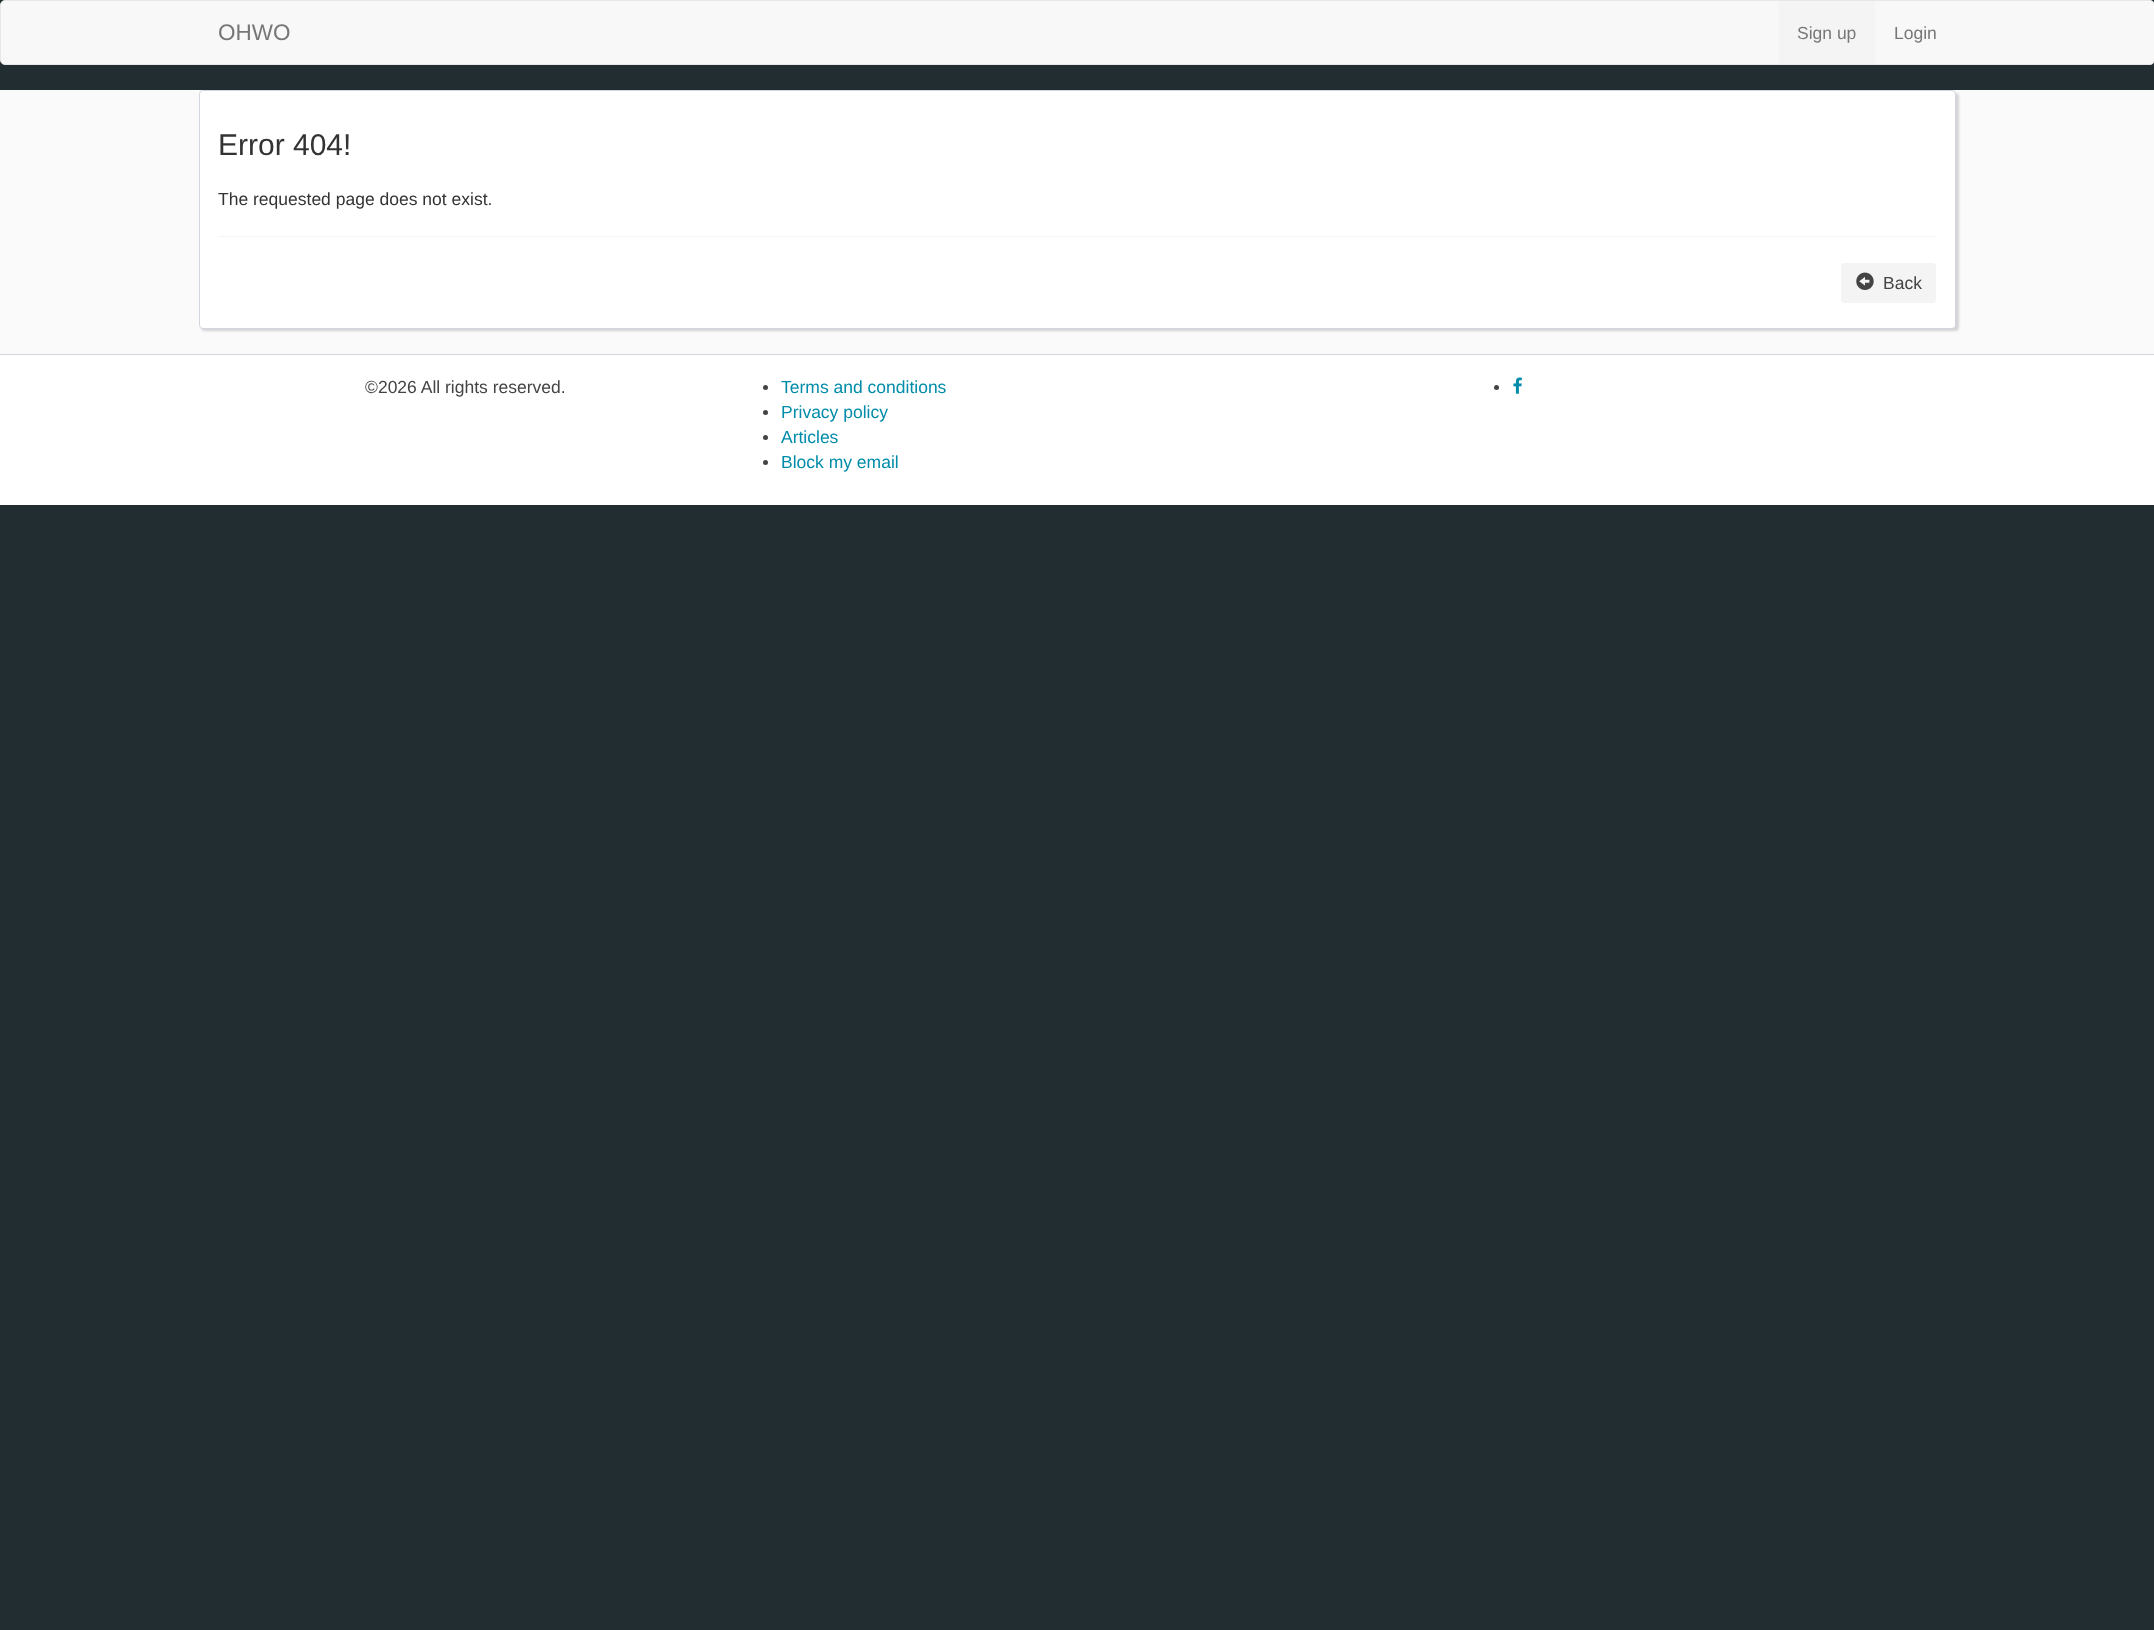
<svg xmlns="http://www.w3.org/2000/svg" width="2154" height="1630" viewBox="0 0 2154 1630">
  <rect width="100%" height="100%" fill="#222d32"/>
  <rect x="0.5" y="0.5" width="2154" height="64" rx="4.5" fill="#f8f8f8" stroke="#e7e7e7"/>
  <path d="M1779 1h96v63H1779z" fill="#f4f4f4"/>
  <path d="M0 90h2154v264H0z" fill="#fafafa"/>
  <rect x="201" y="93" width="1758" height="238" rx="4" fill="#00000026" filter="blur(1px)"/>
  <rect x="199.5" y="90.5" width="1756" height="238" rx="3.5" fill="#fff" stroke="#d2d6de"/>
  <path d="M219 236h1717v1H219z" fill="#f4f4f4"/>
  <rect x="1841" y="263" width="95" height="40" rx="4" fill="#f4f4f4"/>
  <image x="1856" y="272" width="18" height="18" href="img/1.png"/>
  <path d="M0 355h2154v150H0z" fill="#fff"/>
  <path d="M0 354h2154v1H0z" fill="#d2d6de"/>
  <circle cx="765.5" cy="387.5" r="2.5" fill="#444"/>
  <circle cx="765.5" cy="412.5" r="2.5" fill="#444"/>
  <circle cx="765.5" cy="437.5" r="2.5" fill="#444"/>
  <circle cx="765.5" cy="462.5" r="2.5" fill="#444"/>
  <circle cx="1496.5" cy="387.5" r="2.5" fill="#444"/>
  <image x="1513" y="377" width="9" height="17" href="img/2.png"/>
  <text x="218" y="40" font-family="Liberation Sans" font-size="22.5" fill="#777">OHWO</text>
  <g font-family="Liberation Sans" font-size="17.5" fill="#777">
    <text x="1797" y="39">Sign up</text>
    <text x="1894" y="39">Login</text>
  </g>
  <text x="218" y="155" font-family="Liberation Sans" font-size="30" fill="#333">Error 404!</text>
  <text x="218" y="205" font-family="Liberation Sans" font-size="17.5" fill="#333">The requested page does not exist.</text>
  <g font-family="Liberation Sans" font-size="17.5" fill="#444">
    <text x="1883" y="289">Back</text>
    <text x="365" y="393">©2026 All rights reserved.</text>
  </g>
  <g font-family="Liberation Sans" font-size="17.5" fill="#008ca9">
    <text x="781" y="393">Terms and conditions</text>
    <text x="781" y="418">Privacy policy</text>
    <text x="781" y="443">Articles</text>
    <text x="781" y="468">Block my email</text>
  </g>
</svg>
